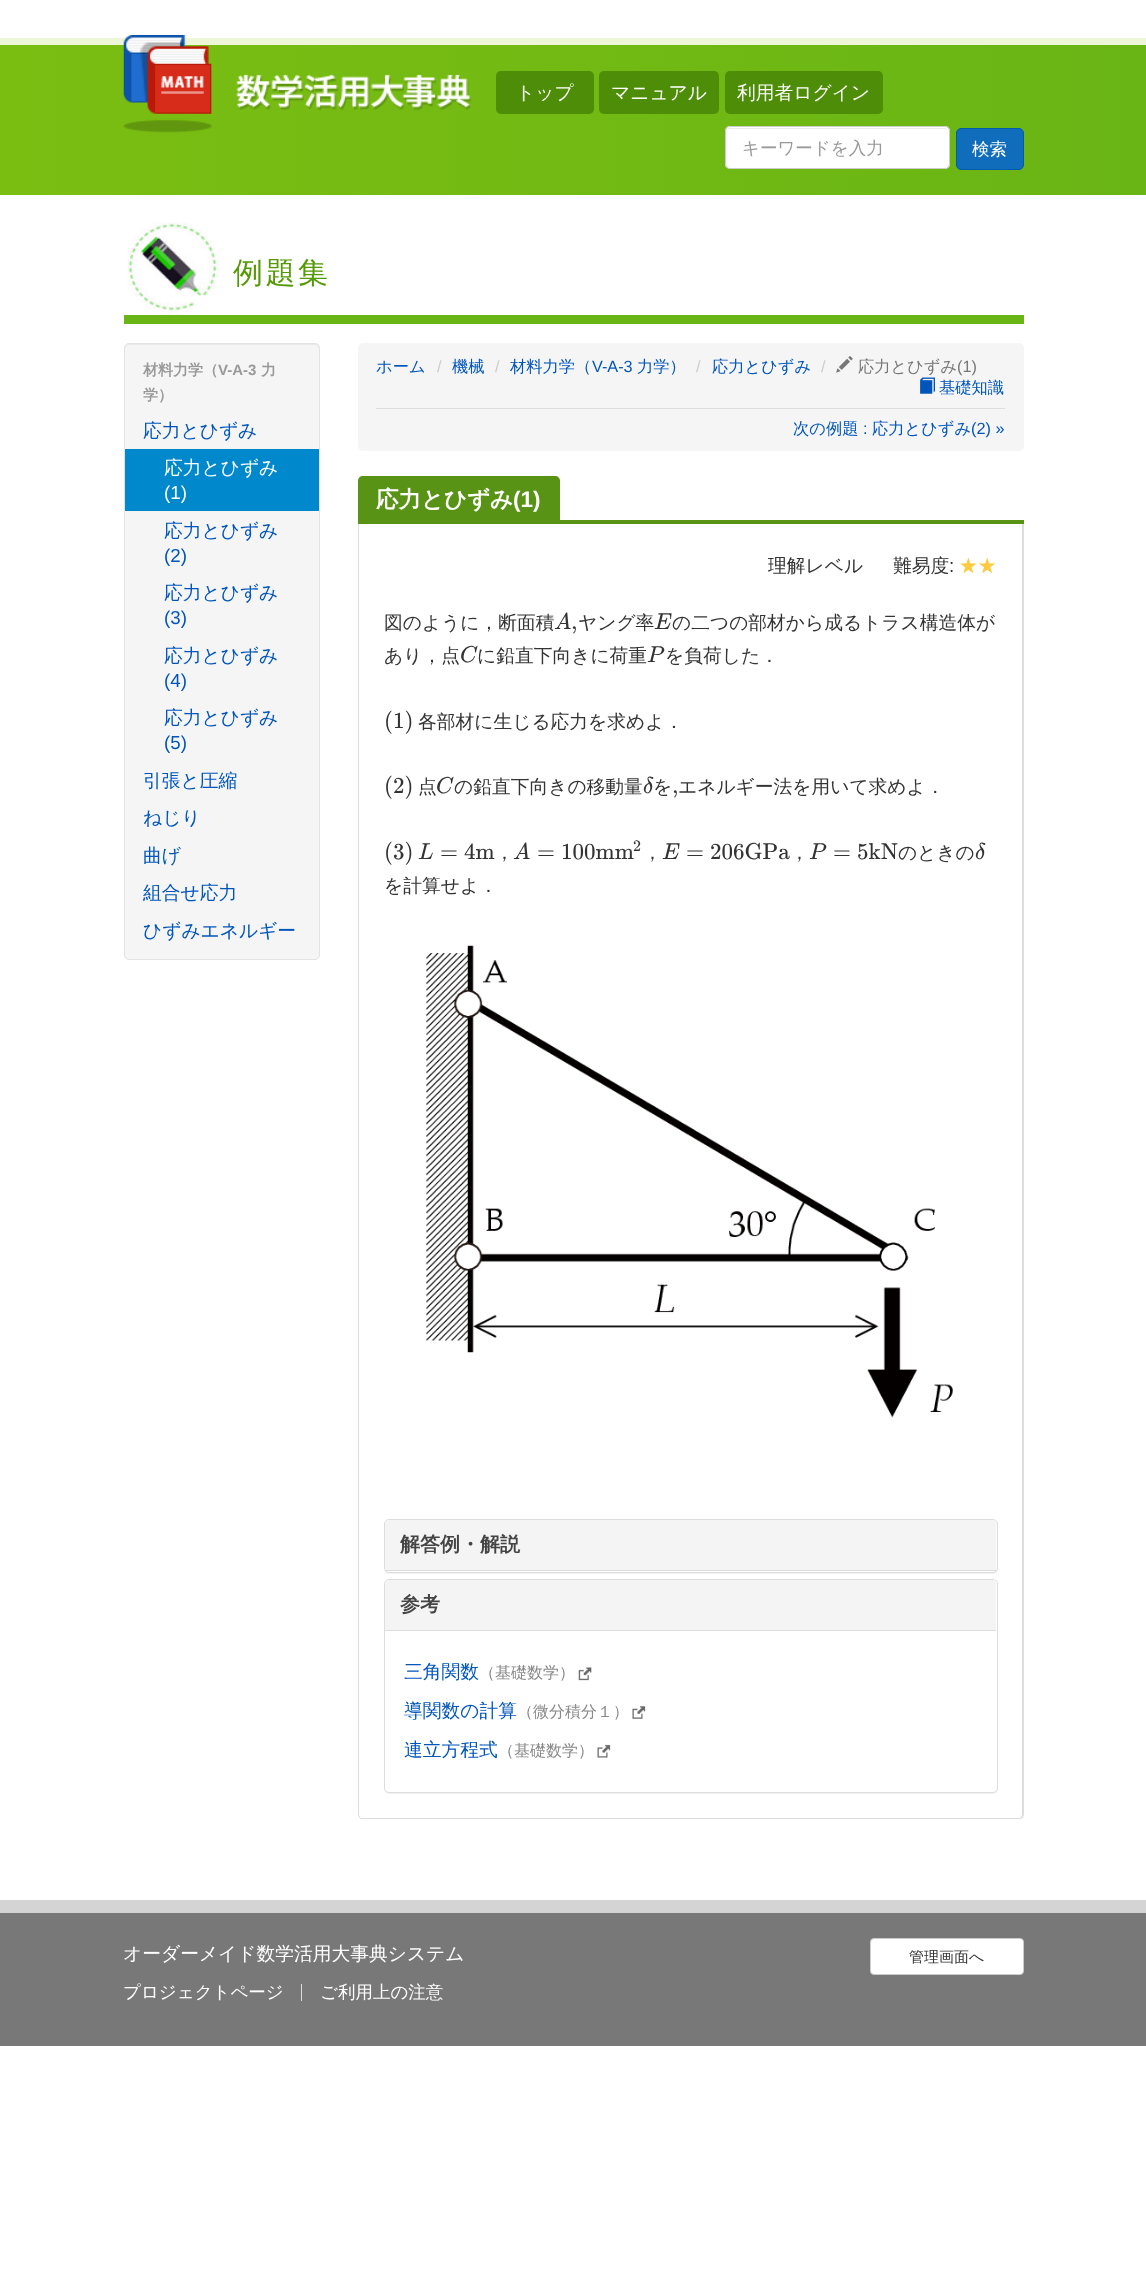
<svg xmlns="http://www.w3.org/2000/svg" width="1146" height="2284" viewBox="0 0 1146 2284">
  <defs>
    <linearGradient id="g1" gradientUnits="userSpaceOnUse" x1="0" y1="120" x2="1146" y2="120"><stop offset="0" stop-color="#7bbe12"/><stop offset="1" stop-color="#69b515"/></linearGradient>
  </defs>
  <rect width="100%" height="100%" fill="#fff"/>
  <path d="M0 45h1146v150H0z" fill="url(#g1)"/>
  <path d="M0 38h1146v7H0z" fill="#edf7d7"/>
  <image x="123" y="35" width="349" height="98" href="img/1.png"/>
  <rect x="496" y="71" width="98" height="43" rx="5" fill="#4d8d07"/>
  <rect x="599" y="71" width="120" height="43" rx="5" fill="#4d8d07"/>
  <rect x="725" y="71" width="158" height="43" rx="5" fill="#4d8d07"/>
  <rect x="725" y="126" width="225" height="43" rx="5" fill="#fff"/>
  <path d="M730 129H945C947 129 949 130 949 132C949 130 947 128 945 128H730C728 128 726 130 726 132C726 130 728 129 730 129Z" fill="#ececec"/>
  <rect x="725.5" y="126.5" width="224" height="42" rx="4.5" fill="none" stroke="#ccc"/>
  <rect x="956.5" y="128.5" width="67" height="41" rx="4.5" fill="#106dbc" stroke="#005cac"/>
  <image x="127" y="222" width="93" height="92" href="img/2.png"/>
  <path d="M124 315h900v9H124z" fill="#69b515"/>
  <rect x="124" y="343" width="196" height="617" rx="5" fill="#f5f5f5"/>
  <path d="M129 345H315C317 345 319 347 319 349V348C319 346 317 344 315 344H129C127 344 125 346 125 348V349C125 347 127 345 129 345Z" fill="#e9e9e9"/>
  <rect x="124.5" y="343.5" width="195" height="616" rx="4.5" fill="none" stroke="#e3e3e3"/>
  <path d="M125 449h194v62H125z" fill="#08c"/>
  <rect x="358" y="343" width="666" height="108" rx="5" fill="#f5f5f5"/>
  <image x="836" y="356" width="17" height="17" href="img/3.png"/>
  <image x="920" y="377" width="15" height="17" href="img/4.png"/>
  <path d="M376 408h629v1H376z" fill="#ddd"/>
  <path d="M358 520h666v4H358z" fill="#589316"/>
  <path d="M363 476H555C558 476 560 478 560 481V520H358V481C358 478 360 476 363 476Z" fill="#589316"/>
  <path d="M358 524H1024V1814C1024 1817 1022 1819 1019 1819H362C360 1819 358 1817 358 1814ZM359 524H1022V1814C1022 1816 1021 1818 1019 1818H362C360 1818 359 1816 359 1814Z" fill="#ddd" fill-rule="evenodd"/>
  <image x="426" y="945" width="527" height="473" href="img/5.png"/>
  <rect x="384" y="1520" width="614" height="54" rx="5" fill="#0000000d" filter="blur(0.5px)"/>
  <rect x="384.5" y="1519.5" width="613" height="53" rx="4.5" fill="#fdfcf8" stroke="#ddd"/>
  <path d="M385 1570h611v1H385z" fill="#ddd"/>
  <path d="M389 1520H992C994 1520 996 1522 996 1524V1570H385V1524C385 1522 387 1520 389 1520Z" fill="#f4f4f4"/>
  <rect x="384" y="1580" width="614" height="214" rx="5" fill="#0000000d" filter="blur(0.5px)"/>
  <rect x="384.5" y="1579.5" width="613" height="213" rx="4.5" fill="#fff" stroke="#ddd"/>
  <path d="M385 1630h611v1H385z" fill="#ddd"/>
  <path d="M389 1580H992C994 1580 996 1582 996 1584V1630H385V1584C385 1582 387 1580 389 1580Z" fill="#f4f4f4"/>
  <image x="578" y="1667" width="14" height="14" href="img/6.png"/>
  <image x="632" y="1706" width="14" height="13" href="img/7.png"/>
  <image x="597" y="1744" width="14" height="14" href="img/8.png"/>
  <path d="M0 1913h1146v133H0z" fill="#787878"/>
  <path d="M0 1900h1146v13H0z" fill="#d4d4d4"/>
  <rect x="870.5" y="1938.5" width="153" height="36" rx="3.5" fill="#fff" stroke="#ccc"/>
  <path d="M301 1984h1v17H301z" fill="#ddd"/>
  <g font-family="WenQuanYi Zen Hei" font-size="18.75" font-weight="500" fill="#fff">
    <text x="516" y="99">トップ</text>
    <text x="611" y="99">マニュアル</text>
    <text x="737" y="99">利用者ログイン</text>
  </g>
  <text x="742" y="154" font-family="WenQuanYi Zen Hei" font-size="17.5" font-weight="500" fill="#999">キーワードを入力</text>
  <text x="972" y="155" font-family="WenQuanYi Zen Hei" font-size="17.5" font-weight="500" fill="#fff">検索</text>
  <text x="233" y="283" font-family="WenQuanYi Zen Hei" font-size="30" font-weight="500" letter-spacing="2.5" fill="#539a04">例題集</text>
  <text x="143" y="375" font-family="WenQuanYi Zen Hei" font-size="15" font-weight="bold" fill="#999">材料力学（</text>
  <text x="218" y="375" font-family="Liberation Sans" font-size="15" font-weight="bold" fill="#999">V-A-3</text>
  <g font-family="WenQuanYi Zen Hei" font-size="15" font-weight="bold" fill="#999">
    <text x="261" y="375">力</text>
    <text x="143" y="400">学）</text>
  </g>
  <text x="143" y="437" font-family="WenQuanYi Zen Hei" font-size="18.75" font-weight="500" fill="#05b">応力とひずみ</text>
  <text x="164" y="474" font-family="WenQuanYi Zen Hei" font-size="18.75" font-weight="500" fill="#fff">応力とひずみ</text>
  <text x="164" y="499" font-family="Liberation Sans" font-size="18.75" fill="#fff">(1)</text>
  <text x="164" y="537" font-family="WenQuanYi Zen Hei" font-size="18.75" font-weight="500" fill="#05b">応力とひずみ</text>
  <text x="164" y="562" font-family="Liberation Sans" font-size="18.75" fill="#05b">(2)</text>
  <text x="164" y="599" font-family="WenQuanYi Zen Hei" font-size="18.75" font-weight="500" fill="#05b">応力とひずみ</text>
  <text x="164" y="624" font-family="Liberation Sans" font-size="18.75" fill="#05b">(3)</text>
  <text x="164" y="662" font-family="WenQuanYi Zen Hei" font-size="18.75" font-weight="500" fill="#05b">応力とひずみ</text>
  <text x="164" y="687" font-family="Liberation Sans" font-size="18.75" fill="#05b">(4)</text>
  <text x="164" y="724" font-family="WenQuanYi Zen Hei" font-size="18.75" font-weight="500" fill="#05b">応力とひずみ</text>
  <text x="164" y="749" font-family="Liberation Sans" font-size="18.75" fill="#05b">(5)</text>
  <g font-family="WenQuanYi Zen Hei" font-size="18.75" font-weight="500" fill="#05b">
    <text x="143" y="787">引張と圧縮</text>
    <text x="143" y="824">ねじり</text>
    <text x="143" y="862">曲げ</text>
    <text x="143" y="899">組合せ応力</text>
    <text x="143" y="937">ひずみエネルギー</text>
  </g>
  <text x="376" y="372" font-family="WenQuanYi Zen Hei" font-size="16.25" font-weight="500" fill="#05b">ホーム</text>
  <text x="437" y="372" font-family="Liberation Sans" font-size="16.25" fill="#ccc">/</text>
  <text x="452" y="372" font-family="WenQuanYi Zen Hei" font-size="16.25" font-weight="500" fill="#05b">機械</text>
  <text x="495" y="372" font-family="Liberation Sans" font-size="16.25" fill="#ccc">/</text>
  <text x="510" y="372" font-family="WenQuanYi Zen Hei" font-size="16.25" font-weight="500" fill="#05b">材料力学（</text>
  <text x="592" y="372" font-family="Liberation Sans" font-size="16.25" fill="#05b">V-A-3</text>
  <text x="637" y="372" font-family="WenQuanYi Zen Hei" font-size="16.25" font-weight="500" fill="#05b">力学）</text>
  <text x="696" y="372" font-family="Liberation Sans" font-size="16.25" fill="#ccc">/</text>
  <text x="712" y="372" font-family="WenQuanYi Zen Hei" font-size="16.25" font-weight="500" fill="#05b">応力とひずみ</text>
  <text x="821" y="372" font-family="Liberation Sans" font-size="16.25" fill="#ccc">/</text>
  <text x="858" y="372" font-family="WenQuanYi Zen Hei" font-size="16.25" font-weight="500" fill="#777">応力とひずみ</text>
  <text x="957" y="372" font-family="Liberation Sans" font-size="16.25" fill="#777">(1)</text>
  <g font-family="WenQuanYi Zen Hei" font-size="16.25" font-weight="500" fill="#05b">
    <text x="939" y="393">基礎知識</text>
    <text x="793" y="434">次の例題</text>
  </g>
  <text x="863" y="434" font-family="Liberation Sans" font-size="16.25" fill="#05b">:</text>
  <text x="872" y="434" font-family="WenQuanYi Zen Hei" font-size="16.25" font-weight="500" fill="#05b">応力とひずみ</text>
  <text x="971" y="434" font-family="Liberation Sans" font-size="16.25" fill="#05b">(2) »</text>
  <text x="376" y="507" font-family="WenQuanYi Zen Hei" font-size="22.5" font-weight="bold" fill="#fff">応力とひずみ</text>
  <text x="513" y="507" font-family="Liberation Sans" font-size="22.5" font-weight="bold" fill="#fff">(1)</text>
  <g font-family="WenQuanYi Zen Hei" font-size="18.75" font-weight="500" fill="#333">
    <text x="768" y="572">理解レベル</text>
    <text x="893" y="572">難易度</text>
  </g>
  <text x="949" y="572" font-family="Liberation Sans" font-size="18.75" fill="#333">:</text>
  <text x="959" y="572" font-family="WenQuanYi Zen Hei" font-size="18.75" font-weight="500" fill="#ffca3f">★★</text>
  <text x="384" y="629" font-family="WenQuanYi Zen Hei" font-size="18.75" font-weight="500" fill="#333">図のように，断面積</text>
  <text x="554" y="629" font-family="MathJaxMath" font-size="23" font-style="italic" fill="#333">A</text>
  <text x="571" y="629" font-family="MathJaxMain" font-size="23" fill="#333">,</text>
  <text x="578" y="629" font-family="WenQuanYi Zen Hei" font-size="18.75" font-weight="500" fill="#333">ヤング率</text>
  <text x="654" y="629" font-family="MathJaxMath" font-size="23" font-style="italic" fill="#333">E</text>
  <g font-family="WenQuanYi Zen Hei" font-size="18.75" font-weight="500" fill="#333">
    <text x="672" y="629">の二つの部材から成るトラス構造体が</text>
    <text x="384" y="662">あり，点</text>
  </g>
  <text x="460" y="662" font-family="MathJaxMath" font-size="23" font-style="italic" fill="#333">C</text>
  <text x="477" y="662" font-family="WenQuanYi Zen Hei" font-size="18.75" font-weight="500" fill="#333">に鉛直下向きに荷重</text>
  <text x="647" y="662" font-family="MathJaxMath" font-size="23" font-style="italic" fill="#333">P</text>
  <text x="665" y="662" font-family="WenQuanYi Zen Hei" font-size="18.75" font-weight="500" fill="#333">を負荷した．</text>
  <text x="384" y="728" font-family="MathJaxMain" font-size="23" fill="#333">(1)</text>
  <text x="418" y="728" font-family="WenQuanYi Zen Hei" font-size="18.75" font-weight="500" fill="#333">各部材に生じる応力を求めよ．</text>
  <text x="384" y="793" font-family="MathJaxMain" font-size="23" fill="#333">(2)</text>
  <text x="418" y="793" font-family="WenQuanYi Zen Hei" font-size="18.75" font-weight="500" fill="#333">点</text>
  <text x="436" y="793" font-family="MathJaxMath" font-size="23" font-style="italic" fill="#333">C</text>
  <text x="454" y="793" font-family="WenQuanYi Zen Hei" font-size="18.75" font-weight="500" fill="#333">の鉛直下向きの移動量</text>
  <text x="643" y="793" font-family="MathJaxMath" font-size="23" font-style="italic" fill="#333">δ</text>
  <text x="653" y="793" font-family="WenQuanYi Zen Hei" font-size="18.75" font-weight="500" fill="#333">を</text>
  <text x="672" y="793" font-family="MathJaxMain" font-size="23" fill="#333">,</text>
  <text x="678" y="793" font-family="WenQuanYi Zen Hei" font-size="18.75" font-weight="500" fill="#333">エネルギー法を用いて求めよ．</text>
  <text x="384" y="859" font-family="MathJaxMain" font-size="23" fill="#333">(3)</text>
  <text x="418" y="859" font-family="MathJaxMath" font-size="23" font-style="italic" fill="#333">L</text>
  <g font-family="MathJaxMain" font-size="23" fill="#333">
    <text x="440" y="859">=</text>
    <text x="464" y="859">4m</text>
  </g>
  <text x="495" y="859" font-family="WenQuanYi Zen Hei" font-size="18.75" font-weight="500" fill="#333">，</text>
  <text x="513" y="859" font-family="MathJaxMath" font-size="23" font-style="italic" fill="#333">A</text>
  <g font-family="MathJaxMain" font-size="23" fill="#333">
    <text x="537" y="859">=</text>
    <text x="561" y="859">100mm</text>
  </g>
  <text x="633" y="851" font-family="MathJaxMain" font-size="16" fill="#333">2</text>
  <text x="643" y="859" font-family="WenQuanYi Zen Hei" font-size="18.75" font-weight="500" fill="#333">，</text>
  <text x="662" y="859" font-family="MathJaxMath" font-size="23" font-style="italic" fill="#333">E</text>
  <g font-family="MathJaxMain" font-size="23" fill="#333">
    <text x="686" y="859">=</text>
    <text x="710" y="859">206GPa</text>
  </g>
  <text x="790" y="859" font-family="WenQuanYi Zen Hei" font-size="18.75" font-weight="500" fill="#333">，</text>
  <text x="809" y="859" font-family="MathJaxMath" font-size="23" font-style="italic" fill="#333">P</text>
  <g font-family="MathJaxMain" font-size="23" fill="#333">
    <text x="833" y="859">=</text>
    <text x="857" y="859">5kN</text>
  </g>
  <text x="898" y="859" font-family="WenQuanYi Zen Hei" font-size="18.75" font-weight="500" fill="#333">のときの</text>
  <text x="975" y="859" font-family="MathJaxMath" font-size="23" font-style="italic" fill="#333">δ</text>
  <text x="384" y="892" font-family="WenQuanYi Zen Hei" font-size="18.75" font-weight="500" fill="#333">を計算せよ．</text>
  <g font-family="WenQuanYi Zen Hei" font-size="20" font-weight="bold" fill="#444">
    <text x="400" y="1551">解答例・解説</text>
    <text x="400" y="1611">参考</text>
  </g>
  <text x="404" y="1678" font-family="WenQuanYi Zen Hei" font-size="18.75" font-weight="500" fill="#05b">三角関数</text>
  <text x="479" y="1678" font-family="WenQuanYi Zen Hei" font-size="16" font-weight="500" fill="#888">（基礎数学）</text>
  <text x="404" y="1717" font-family="WenQuanYi Zen Hei" font-size="18.75" font-weight="500" fill="#05b">導関数の計算</text>
  <text x="517" y="1717" font-family="WenQuanYi Zen Hei" font-size="16" font-weight="500" fill="#888">（微分積分１）</text>
  <text x="404" y="1756" font-family="WenQuanYi Zen Hei" font-size="18.75" font-weight="500" fill="#05b">連立方程式</text>
  <text x="498" y="1756" font-family="WenQuanYi Zen Hei" font-size="16" font-weight="500" fill="#888">（基礎数学）</text>
  <text x="123" y="1960" font-family="WenQuanYi Zen Hei" font-size="18.75" font-weight="500" fill="#fff">オーダーメイド数学活用大事典システム</text>
  <text x="909" y="1962" font-family="WenQuanYi Zen Hei" font-size="15" font-weight="500" fill="#333">管理画面へ</text>
  <g font-family="WenQuanYi Zen Hei" font-size="17.5" font-weight="500" fill="#fff">
    <text x="123" y="1998">プロジェクトページ</text>
    <text x="320" y="1998">ご利用上の注意</text>
  </g>
</svg>
